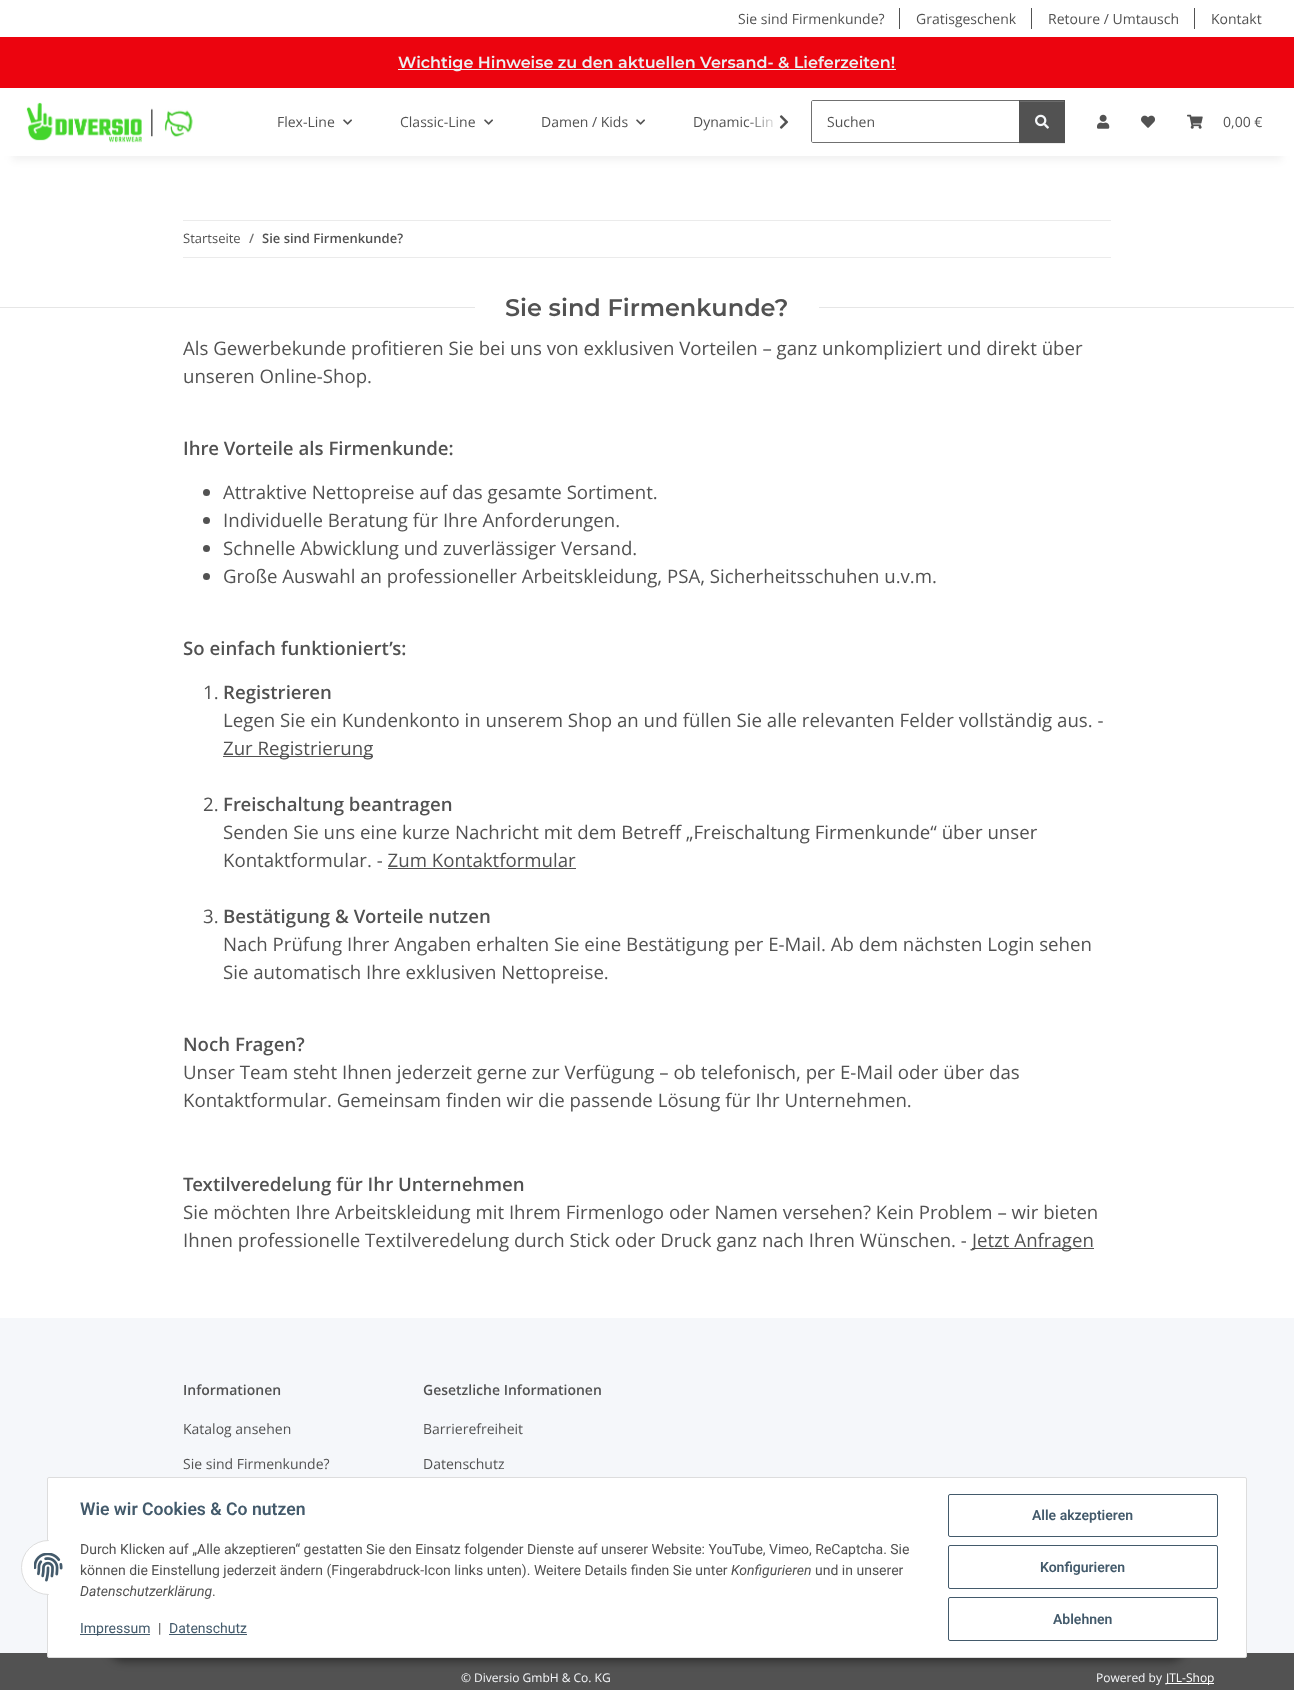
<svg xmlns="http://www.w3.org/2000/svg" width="1294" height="1690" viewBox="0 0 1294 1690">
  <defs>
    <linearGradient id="g1" gradientUnits="userSpaceOnUse" x1="747" y1="122" x2="795" y2="122"><stop offset="0" stop-color="#fff" stop-opacity="0.01"/><stop offset="0.7" stop-color="#fff"/></linearGradient>
  </defs>
  <rect width="100%" height="100%" fill="#f5f7fa"/>
  <path d="M0 0h1294v37H0z" fill="#fff"/>
  <path d="M899 8h1v21H899z" fill="#525252"/>
  <path d="M1031 8h1v21H1031z" fill="#525252"/>
  <path d="M1194 8h1v21H1194z" fill="#525252"/>
  <path d="M0 37h1294v51H0z" fill="#ec040f"/>
  <path d="M398 69h498v1H398z" fill="#ecf0f1"/>
  <path d="M0 156h1294v1162H0z" fill="#fff"/>
  <path d="M12 116h1270v44H12z" fill="#0000000f" filter="blur(4.5px)"/>
  <path d="M0 88h1294v68H0z" fill="#fff"/>
  <image x="26" y="102" width="167" height="41" href="img/1.png"/>
  <image x="779" y="115" width="10" height="14" href="img/2.png"/>
  <image x="343" y="119" width="9" height="6" href="img/3.png"/>
  <image x="484" y="119" width="9" height="6" href="img/3.png"/>
  <image x="636" y="119" width="9" height="6" href="img/3.png"/>
  <path d="M813 100.5H1019.5V142.5H813C812 142.5 811.5 142 811.5 141V102C811.5 101 812 100.5 813 100.5Z" fill="none" stroke="#707070"/>
  <path d="M1019 101h46v43H1019z" fill="#00000012" filter="blur(0.5px)"/>
  <path d="M1019 100h46v43H1019z" fill="#525252"/>
  <path d="M1020 101h44v1H1020z" fill="#6c6c6c"/>
  <image x="1035" y="114" width="14" height="15" href="img/4.png"/>
  <image x="1097" y="114" width="13" height="15" href="img/5.png"/>
  <image x="1141" y="115" width="14" height="13" href="img/6.png"/>
  <image x="1187" y="114" width="16" height="15" href="img/7.png"/>
  <path d="M183 220h928v1H183z" fill="#ebebeb"/>
  <path d="M183 257h928v1H183z" fill="#ebebeb"/>
  <path d="M0 307h475v1H0z" fill="#e6e6e6"/>
  <path d="M819 307h475v1H819z" fill="#e6e6e6"/>
  <circle cx="206.5" cy="492.5" r="3.5" fill="#525252"/>
  <circle cx="206.5" cy="520.5" r="3.5" fill="#525252"/>
  <circle cx="206.5" cy="548.5" r="3.5" fill="#525252"/>
  <circle cx="206.5" cy="576.5" r="3.5" fill="#525252"/>
  <path d="M223 756h150v1H223z" fill="#525252"/>
  <path d="M388 868h188v1H388z" fill="#525252"/>
  <path d="M972 1248h122v1H972z" fill="#525252"/>
  <path d="M0 1653h1294v37H0z" fill="#525252"/>
  <path d="M1166 1683h48v1H1166z" fill="#fff"/>
  <rect x="108" y="1629" width="1078" height="32" rx="16" fill="#00000073" filter="blur(5px)"/>
  <rect x="47.5" y="1477.5" width="1199" height="180" rx="1.5" fill="#fff" stroke="#ddd"/>
  <circle cx="48.5" cy="1567.5" r="27" fill="#fff" stroke="#ddd"/>
  <path d="M49 1540h27v55H49z" fill="#fff"/>
  <image x="34" y="1553" width="29" height="29" href="img/8.png"/>
  <path d="M80 1634h70v1H80z" fill="#435a6b"/>
  <path d="M169 1634h78v1H169z" fill="#435a6b"/>
  <rect x="948.5" y="1494.5" width="269" height="42" rx="1.5" fill="none" stroke="#435a6b"/>
  <rect x="948.5" y="1545.5" width="269" height="43" rx="1.5" fill="none" stroke="#435a6b"/>
  <rect x="948.5" y="1597.5" width="269" height="43" rx="1.5" fill="none" stroke="#435a6b"/>
  <g font-family="Open Sans" font-size="14" fill="#525252">
    <text x="738" y="24">Sie sind Firmenkunde?</text>
    <text x="916" y="24">Gratisgeschenk</text>
    <text x="1048" y="24">Retoure / Umtausch</text>
    <text x="1211" y="24">Kontakt</text>
  </g>
  <text x="398" y="68" font-family="Montserrat" font-size="16" font-weight="600" fill="#ecf0f1">Wichtige Hinweise zu den aktuellen Versand- &amp; Lieferzeiten!</text>
  <g font-family="Open Sans" font-size="14" fill="#525252">
    <text x="277" y="127">Flex-Line</text>
    <text x="400" y="127">Classic-Line</text>
    <text x="541" y="127">Damen / Kids</text>
    <text x="693" y="127">Dynamic-Lin</text>
  </g>
  <path d="M747 116h26v11H747z" fill="url(#g1)"/>
  <g font-family="Open Sans" font-size="14" fill="#525252">
    <text x="827" y="127">Suchen</text>
    <text x="1223" y="127">0,00 €</text>
  </g>
  <text x="183" y="243" font-family="Open Sans" font-size="13" fill="#525252">Startseite</text>
  <text x="249" y="243" font-family="Open Sans" font-size="13" font-weight="600" fill="#707070">/</text>
  <text x="262" y="243" font-family="Open Sans" font-size="13" font-weight="600" fill="#525252">Sie sind Firmenkunde?</text>
  <text x="505" y="316" font-family="Montserrat" font-size="24" font-weight="600" fill="#525252">Sie sind Firmenkunde?</text>
  <g font-family="Open Sans" font-size="18.65" fill="#525252">
    <text x="183" y="355">Als Gewerbekunde profitieren Sie bei uns von exklusiven Vorteilen – ganz unkompliziert und direkt über</text>
    <text x="183" y="383">unseren Online-Shop.</text>
  </g>
  <text x="183" y="455" font-family="Open Sans" font-size="18.65" font-weight="600" fill="#525252">Ihre Vorteile als Firmenkunde:</text>
  <g font-family="Open Sans" font-size="18.65" fill="#525252">
    <text x="223" y="499">Attraktive Nettopreise auf das gesamte Sortiment.</text>
    <text x="223" y="527">Individuelle Beratung für Ihre Anforderungen.</text>
    <text x="223" y="555">Schnelle Abwicklung und zuverlässiger Versand.</text>
    <text x="223" y="583">Große Auswahl an professioneller Arbeitskleidung, PSA, Sicherheitsschuhen u.v.m.</text>
  </g>
  <text x="183" y="655" font-family="Open Sans" font-size="18.65" font-weight="600" fill="#525252">So einfach funktioniert’s:</text>
  <text x="203" y="699" font-family="Open Sans" font-size="18.65" fill="#525252">1.</text>
  <text x="223" y="699" font-family="Open Sans" font-size="18.65" font-weight="600" fill="#525252">Registrieren</text>
  <g font-family="Open Sans" font-size="18.65" fill="#525252">
    <text x="223" y="727">Legen Sie ein Kundenkonto in unserem Shop an und füllen Sie alle relevanten Felder vollständig aus. -</text>
    <text x="223" y="755">Zur Registrierung</text>
    <text x="203" y="811">2.</text>
  </g>
  <text x="223" y="811" font-family="Open Sans" font-size="18.65" font-weight="600" fill="#525252">Freischaltung beantragen</text>
  <g font-family="Open Sans" font-size="18.65" fill="#525252">
    <text x="223" y="839">Senden Sie uns eine kurze Nachricht mit dem Betreff „Freischaltung Firmenkunde“ über unser</text>
    <text x="223" y="867">Kontaktformular. - Zum Kontaktformular</text>
    <text x="203" y="923">3.</text>
  </g>
  <text x="223" y="923" font-family="Open Sans" font-size="18.65" font-weight="600" fill="#525252">Bestätigung &amp; Vorteile nutzen</text>
  <g font-family="Open Sans" font-size="18.65" fill="#525252">
    <text x="223" y="951">Nach Prüfung Ihrer Angaben erhalten Sie eine Bestätigung per E-Mail. Ab dem nächsten Login sehen</text>
    <text x="223" y="979">Sie automatisch Ihre exklusiven Nettopreise.</text>
  </g>
  <text x="183" y="1051" font-family="Open Sans" font-size="18.65" font-weight="600" fill="#525252">Noch Fragen?</text>
  <g font-family="Open Sans" font-size="18.65" fill="#525252">
    <text x="183" y="1079">Unser Team steht Ihnen jederzeit gerne zur Verfügung – ob telefonisch, per E-Mail oder über das</text>
    <text x="183" y="1107">Kontaktformular. Gemeinsam finden wir die passende Lösung für Ihr Unternehmen.</text>
  </g>
  <text x="183" y="1191" font-family="Open Sans" font-size="18.65" font-weight="600" fill="#525252">Textilveredelung für Ihr Unternehmen</text>
  <g font-family="Open Sans" font-size="18.65" fill="#525252">
    <text x="183" y="1219">Sie möchten Ihre Arbeitskleidung mit Ihrem Firmenlogo oder Namen versehen? Kein Problem – wir bieten</text>
    <text x="183" y="1247">Ihnen professionelle Textilveredelung durch Stick oder Druck ganz nach Ihren Wünschen. -</text>
    <text x="972" y="1247">Jetzt Anfragen</text>
  </g>
  <text x="183" y="1395" font-family="Open Sans" font-size="14" font-weight="600" fill="#525252">Informationen</text>
  <g font-family="Open Sans" font-size="14" fill="#525252">
    <text x="183" y="1434">Katalog ansehen</text>
    <text x="183" y="1469">Sie sind Firmenkunde?</text>
  </g>
  <text x="423" y="1395" font-family="Open Sans" font-size="14" font-weight="600" fill="#525252">Gesetzliche Informationen</text>
  <g font-family="Open Sans" font-size="14" fill="#525252">
    <text x="423" y="1434">Barrierefreiheit</text>
    <text x="423" y="1469">Datenschutz</text>
  </g>
  <g font-family="Open Sans" font-size="12" fill="#f5f7fa">
    <text x="461" y="1682">© Diversio GmbH &amp; Co. KG</text>
    <text x="1096" y="1682">Powered by</text>
  </g>
  <text x="1166" y="1682" font-family="Open Sans" font-size="12" fill="#fff">JTL-Shop</text>
  <text x="80" y="1515" font-family="Roboto" font-size="17.6" font-weight="600" fill="#435a6b">Wie wir Cookies &amp; Co nutzen</text>
  <g font-family="Roboto" font-size="14" fill="#525252">
    <text x="80" y="1554">Durch Klicken auf „Alle akzeptieren“ gestatten Sie den Einsatz folgender Dienste auf unserer Website: YouTube, Vimeo, ReCaptcha. Sie</text>
    <text x="80" y="1575">können die Einstellung jederzeit ändern (Fingerabdruck-Icon links unten). Weitere Details finden Sie unter</text>
  </g>
  <text x="731" y="1575" font-family="Roboto" font-size="14" font-style="italic" fill="#525252">Konfigurieren</text>
  <text x="815" y="1575" font-family="Roboto" font-size="14" fill="#525252">und in unserer</text>
  <text x="80" y="1596" font-family="Roboto" font-size="14" font-style="italic" fill="#525252">Datenschutzerklärung</text>
  <text x="212" y="1596" font-family="Roboto" font-size="14" fill="#525252">.</text>
  <text x="80" y="1633" font-family="Roboto" font-size="14" fill="#435a6b">Impressum</text>
  <text x="158" y="1633" font-family="Roboto" font-size="14" fill="#525252">|</text>
  <text x="169" y="1633" font-family="Roboto" font-size="14" fill="#435a6b">Datenschutz</text>
  <g font-family="Roboto" font-size="14" font-weight="600" fill="#435a6b">
    <text x="1032" y="1520">Alle akzeptieren</text>
    <text x="1040" y="1572">Konfigurieren</text>
    <text x="1053" y="1624">Ablehnen</text>
  </g>
</svg>
